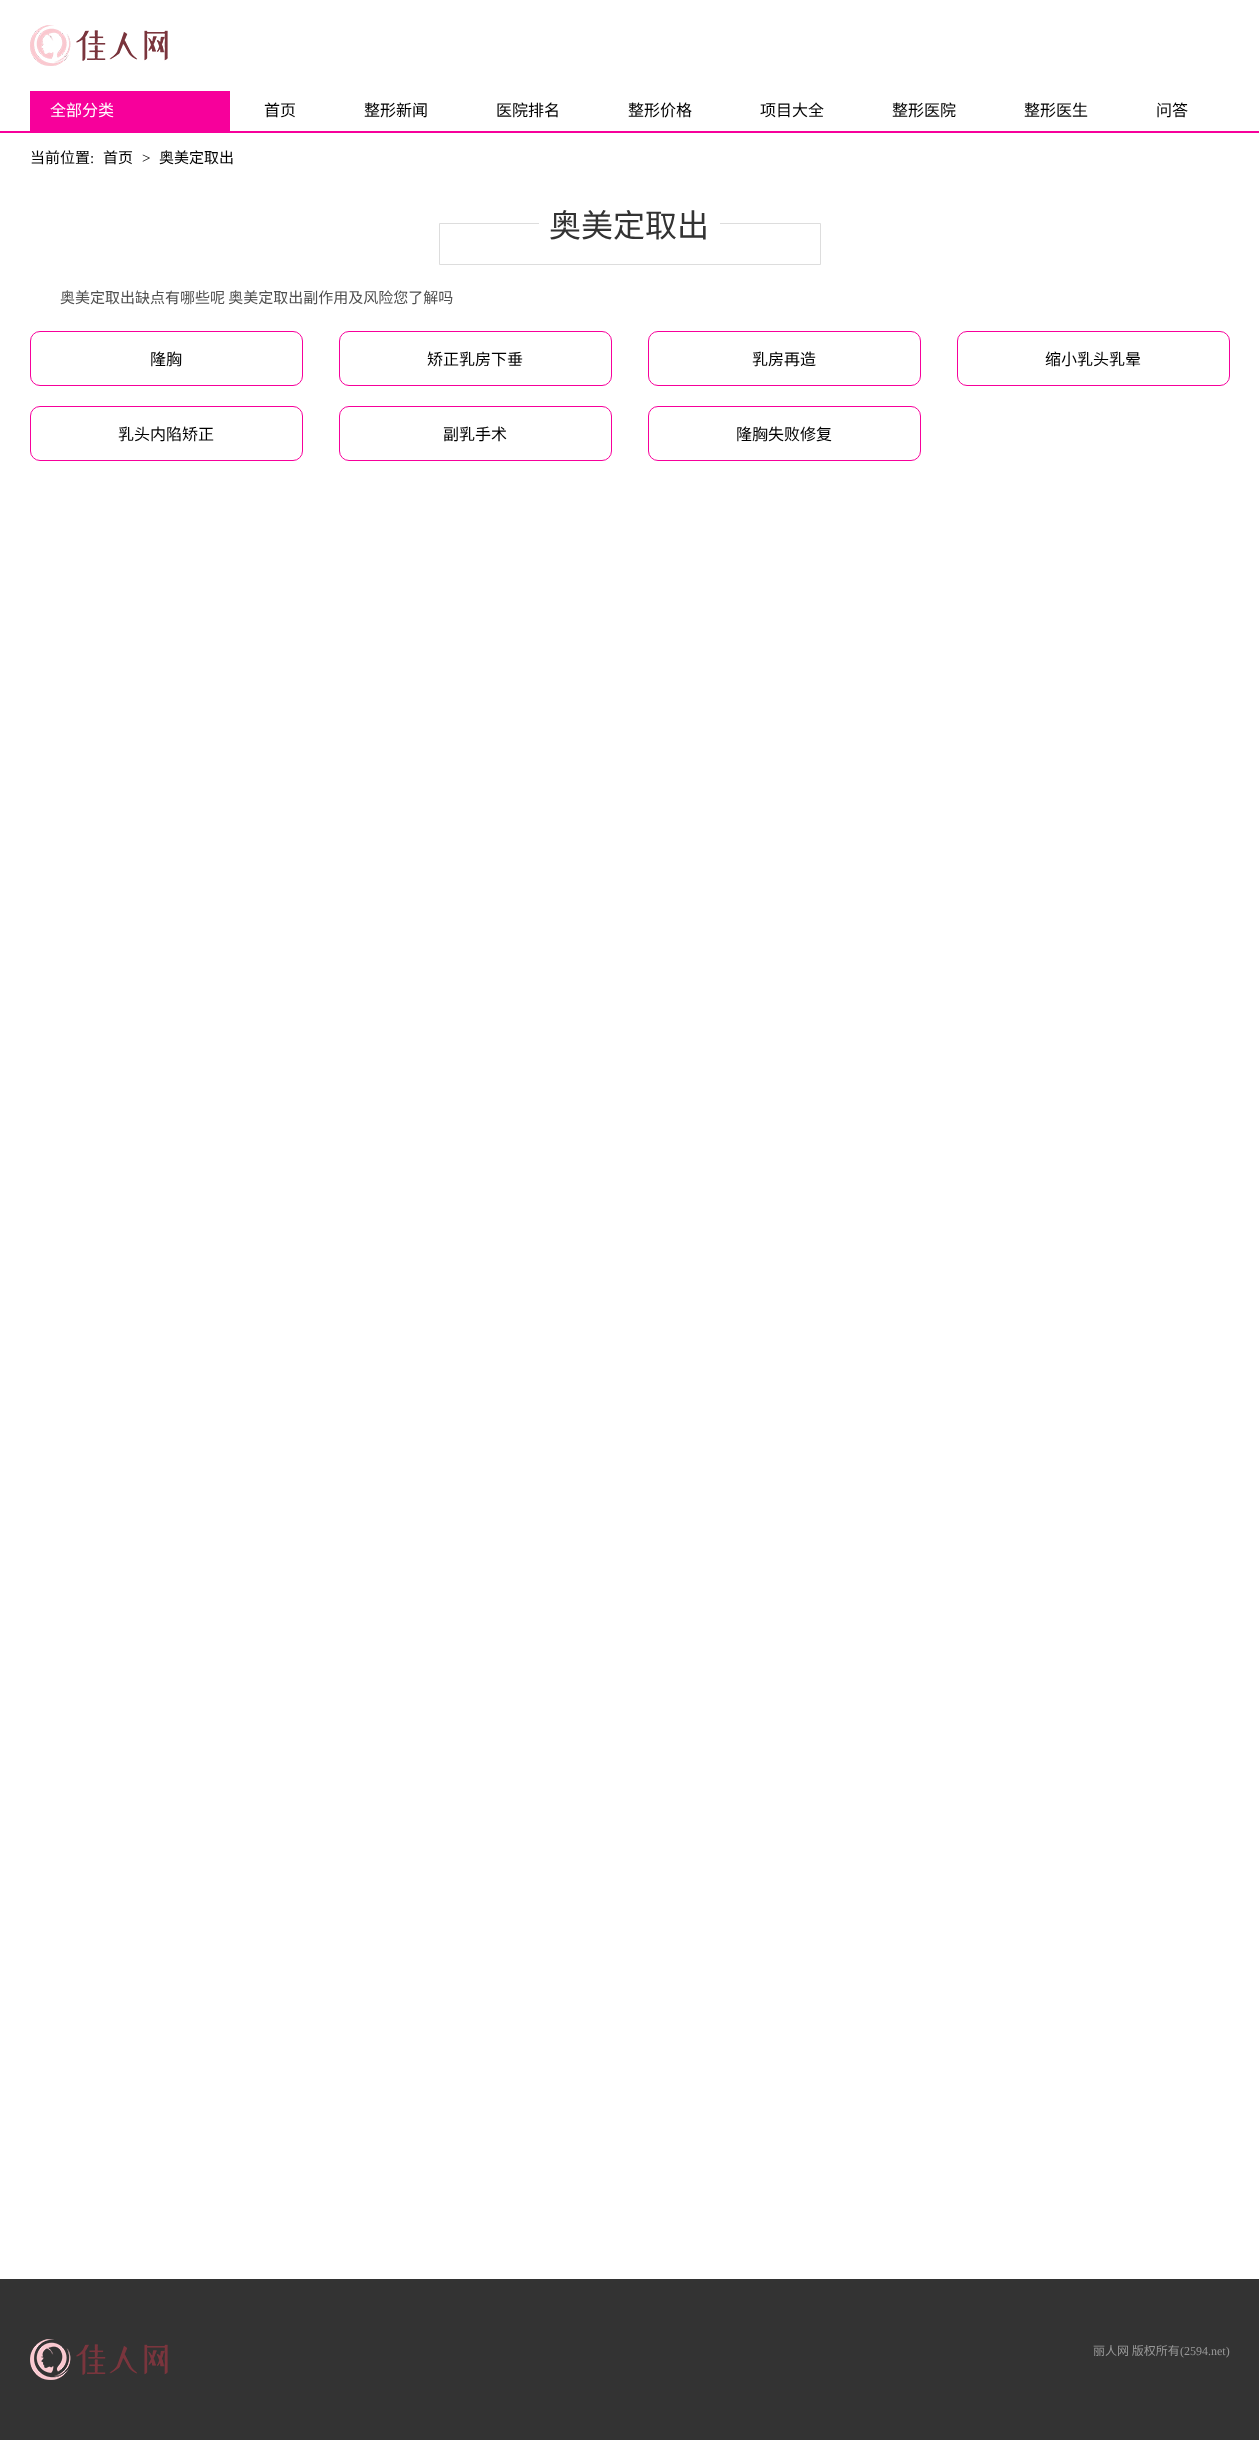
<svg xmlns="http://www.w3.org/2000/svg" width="1259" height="2440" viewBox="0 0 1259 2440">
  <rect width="100%" height="100%" fill="#fff"/>
  <image x="30" y="25" width="138" height="41" href="img/1.png"/>
  <path d="M0 131h1259v2H0z" fill="#f7009b"/>
  <path d="M30 91h200v40H30z" fill="#f7009b"/>
  <path d="M439.5 223.5h381v41H439.5z" fill="none" stroke="#ddd"/>
  <path d="M539 223h181v1H539z" fill="#fff"/>
  <rect x="30.5" y="331.5" width="272" height="54" rx="9.5" fill="none" stroke="#f7009b"/>
  <rect x="339.5" y="331.5" width="272" height="54" rx="9.5" fill="none" stroke="#f7009b"/>
  <rect x="648.5" y="331.5" width="272" height="54" rx="9.5" fill="none" stroke="#f7009b"/>
  <rect x="957.5" y="331.5" width="272" height="54" rx="9.5" fill="none" stroke="#f7009b"/>
  <rect x="30.5" y="406.5" width="272" height="54" rx="9.5" fill="none" stroke="#f7009b"/>
  <rect x="339.5" y="406.5" width="272" height="54" rx="9.5" fill="none" stroke="#f7009b"/>
  <rect x="648.5" y="406.5" width="272" height="54" rx="9.5" fill="none" stroke="#f7009b"/>
  <path d="M0 2279h1259v161H0z" fill="#333"/>
  <image x="30" y="2339" width="138" height="41" href="img/2.png"/>
  <text x="50" y="116" font-family="Noto Sans CJK SC" font-size="16" fill="#fff">全部分类</text>
  <g font-family="Noto Sans CJK SC" font-size="16" fill="#000">
    <text x="264" y="116">首页</text>
    <text x="364" y="116">整形新闻</text>
    <text x="496" y="116">医院排名</text>
    <text x="628" y="116">整形价格</text>
    <text x="760" y="116">项目大全</text>
    <text x="892" y="116">整形医院</text>
    <text x="1024" y="116">整形医生</text>
    <text x="1156" y="116">问答</text>
  </g>
  <text x="30" y="163" font-family="Noto Sans CJK SC" font-size="15" fill="#000">当前位置</text>
  <text x="90" y="163" font-family="Liberation Serif" font-size="15" fill="#000">:</text>
  <text x="103" y="163" font-family="Noto Sans CJK SC" font-size="15" fill="#000">首页</text>
  <text x="142" y="163" font-family="Liberation Serif" font-size="15" fill="#000">&gt;</text>
  <text x="159" y="163" font-family="Noto Sans CJK SC" font-size="15" fill="#000">奥美定取出</text>
  <text x="549" y="237" font-family="Noto Sans CJK SC" font-size="32" fill="#333">奥美定取出</text>
  <text x="60" y="303" font-family="Noto Sans CJK SC" font-size="15" fill="#4f4f4f">奥美定取出缺点有哪些呢 奥美定取出副作用及风险您了解吗</text>
  <g font-family="Noto Sans CJK SC" font-size="16" fill="#000">
    <text x="150" y="365">隆胸</text>
    <text x="427" y="365">矫正乳房下垂</text>
    <text x="752" y="365">乳房再造</text>
    <text x="1045" y="365">缩小乳头乳晕</text>
    <text x="118" y="440">乳头内陷矫正</text>
    <text x="443" y="440">副乳手术</text>
    <text x="736" y="440">隆胸失败修复</text>
  </g>
  <text x="1093" y="2355" font-family="Noto Sans CJK SC" font-size="12" fill="#999">丽人网 版权所有</text>
  <text x="1180" y="2355" font-family="Liberation Serif" font-size="12" fill="#999">(2594.net)</text>
</svg>
